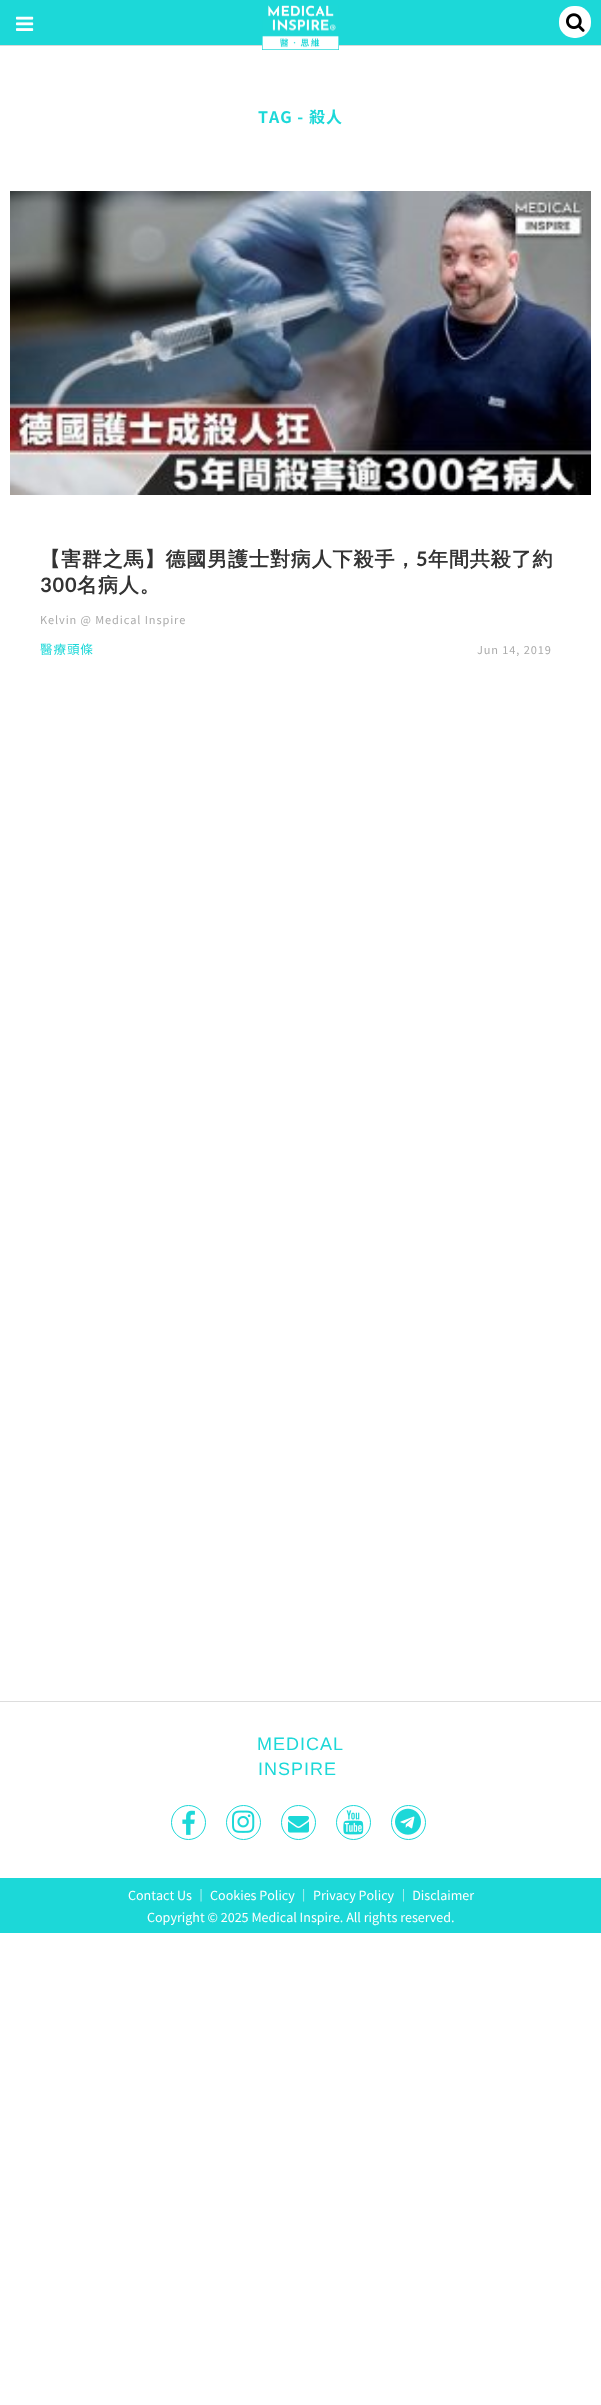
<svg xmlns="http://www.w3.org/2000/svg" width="601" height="2405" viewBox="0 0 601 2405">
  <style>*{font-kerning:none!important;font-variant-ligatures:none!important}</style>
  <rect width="100%" height="100%" fill="#fff"/>
  <path d="M0-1V0H601V45H0V46H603V-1Z" fill="#d9d9d9"/>
  <path d="M0 0h601v45H0z" fill="#1cd8d8"/>
  <image x="16" y="16" width="18" height="15" href="img/1.png"/>
  <image x="262" y="5" width="77" height="45" href="img/2.png"/>
  <rect x="559" y="6" width="32" height="32" rx="15" fill="#fff"/>
  <image x="566" y="13" width="19" height="19" href="img/3.png"/>
  <image x="10" y="191" width="581" height="304" href="img/4.png"/>
  <path d="M0 1701h601v1H0z" fill="#ddd"/>
  <circle cx="188.5" cy="1822.5" r="17" fill="none" stroke="#1cd8d8"/>
  <image x="182" y="1810" width="13" height="25" href="img/5.png"/>
  <circle cx="243.5" cy="1822.5" r="17" fill="none" stroke="#1cd8d8"/>
  <image x="232" y="1810" width="23" height="23" href="img/6.png"/>
  <circle cx="298.5" cy="1822.5" r="17" fill="none" stroke="#1cd8d8"/>
  <image x="288" y="1816" width="21" height="17" href="img/7.png"/>
  <circle cx="353.5" cy="1822.5" r="17" fill="none" stroke="#1cd8d8"/>
  <image x="343" y="1810" width="21" height="25" href="img/8.png"/>
  <circle cx="408.5" cy="1822.5" r="17" fill="none" stroke="#1cd8d8"/>
  <image x="395" y="1808" width="26" height="27" href="img/9.png"/>
  <path d="M0 1878h601v55H0z" fill="#1cd8d8"/>
  <text x="258" y="123" font-family="Noto Sans HK" font-size="16" font-weight="bold" letter-spacing="1" fill="#1cd8d8">TAG - 殺人</text>
  <text x="40" y="566" font-family="WenQuanYi Zen Hei" font-size="20" font-weight="bold" letter-spacing="0.9" fill="#333">【害群之馬】德國男護士對病人下殺手，</text>
  <text x="416" y="566" font-family="Lato" font-size="20" font-weight="bold" letter-spacing="0.9" fill="#333">5</text>
  <text x="428" y="566" font-family="WenQuanYi Zen Hei" font-size="20" font-weight="bold" letter-spacing="0.9" fill="#333">年間共殺了約</text>
  <text x="40" y="592" font-family="Lato" font-size="20" font-weight="bold" letter-spacing="0.9" fill="#333">300</text>
  <text x="77" y="592" font-family="WenQuanYi Zen Hei" font-size="20" font-weight="bold" letter-spacing="0.9" fill="#333">名病人。</text>
  <text x="40" y="624" font-family="Noto Sans HK" font-size="11" letter-spacing="0.9" fill="#ababab">Kelvin @ Medical Inspire</text>
  <text x="40" y="654" font-family="Noto Sans HK" font-size="12.55" letter-spacing="0.9" fill="#1cd8d8">醫療頭條</text>
  <text x="477" y="654" font-family="Noto Sans HK" font-size="11" letter-spacing="0.9" fill="#ababab">Jun 14, 2019</text>
  <g font-family="Liberation Sans" font-size="18" letter-spacing="1" fill="#1cd8d8">
    <text x="257" y="1750">MEDICAL</text>
    <text x="258" y="1775">INSPIRE</text>
  </g>
  <g font-family="Noto Sans HK" font-size="12.55" fill="#fff">
    <text x="128" y="1900">Contact Us ｜ Cookies Policy ｜ Privacy Policy ｜ Disclaimer</text>
    <text x="147" y="1922">Copyright © 2025 Medical Inspire. All rights reserved.</text>
  </g>
</svg>
